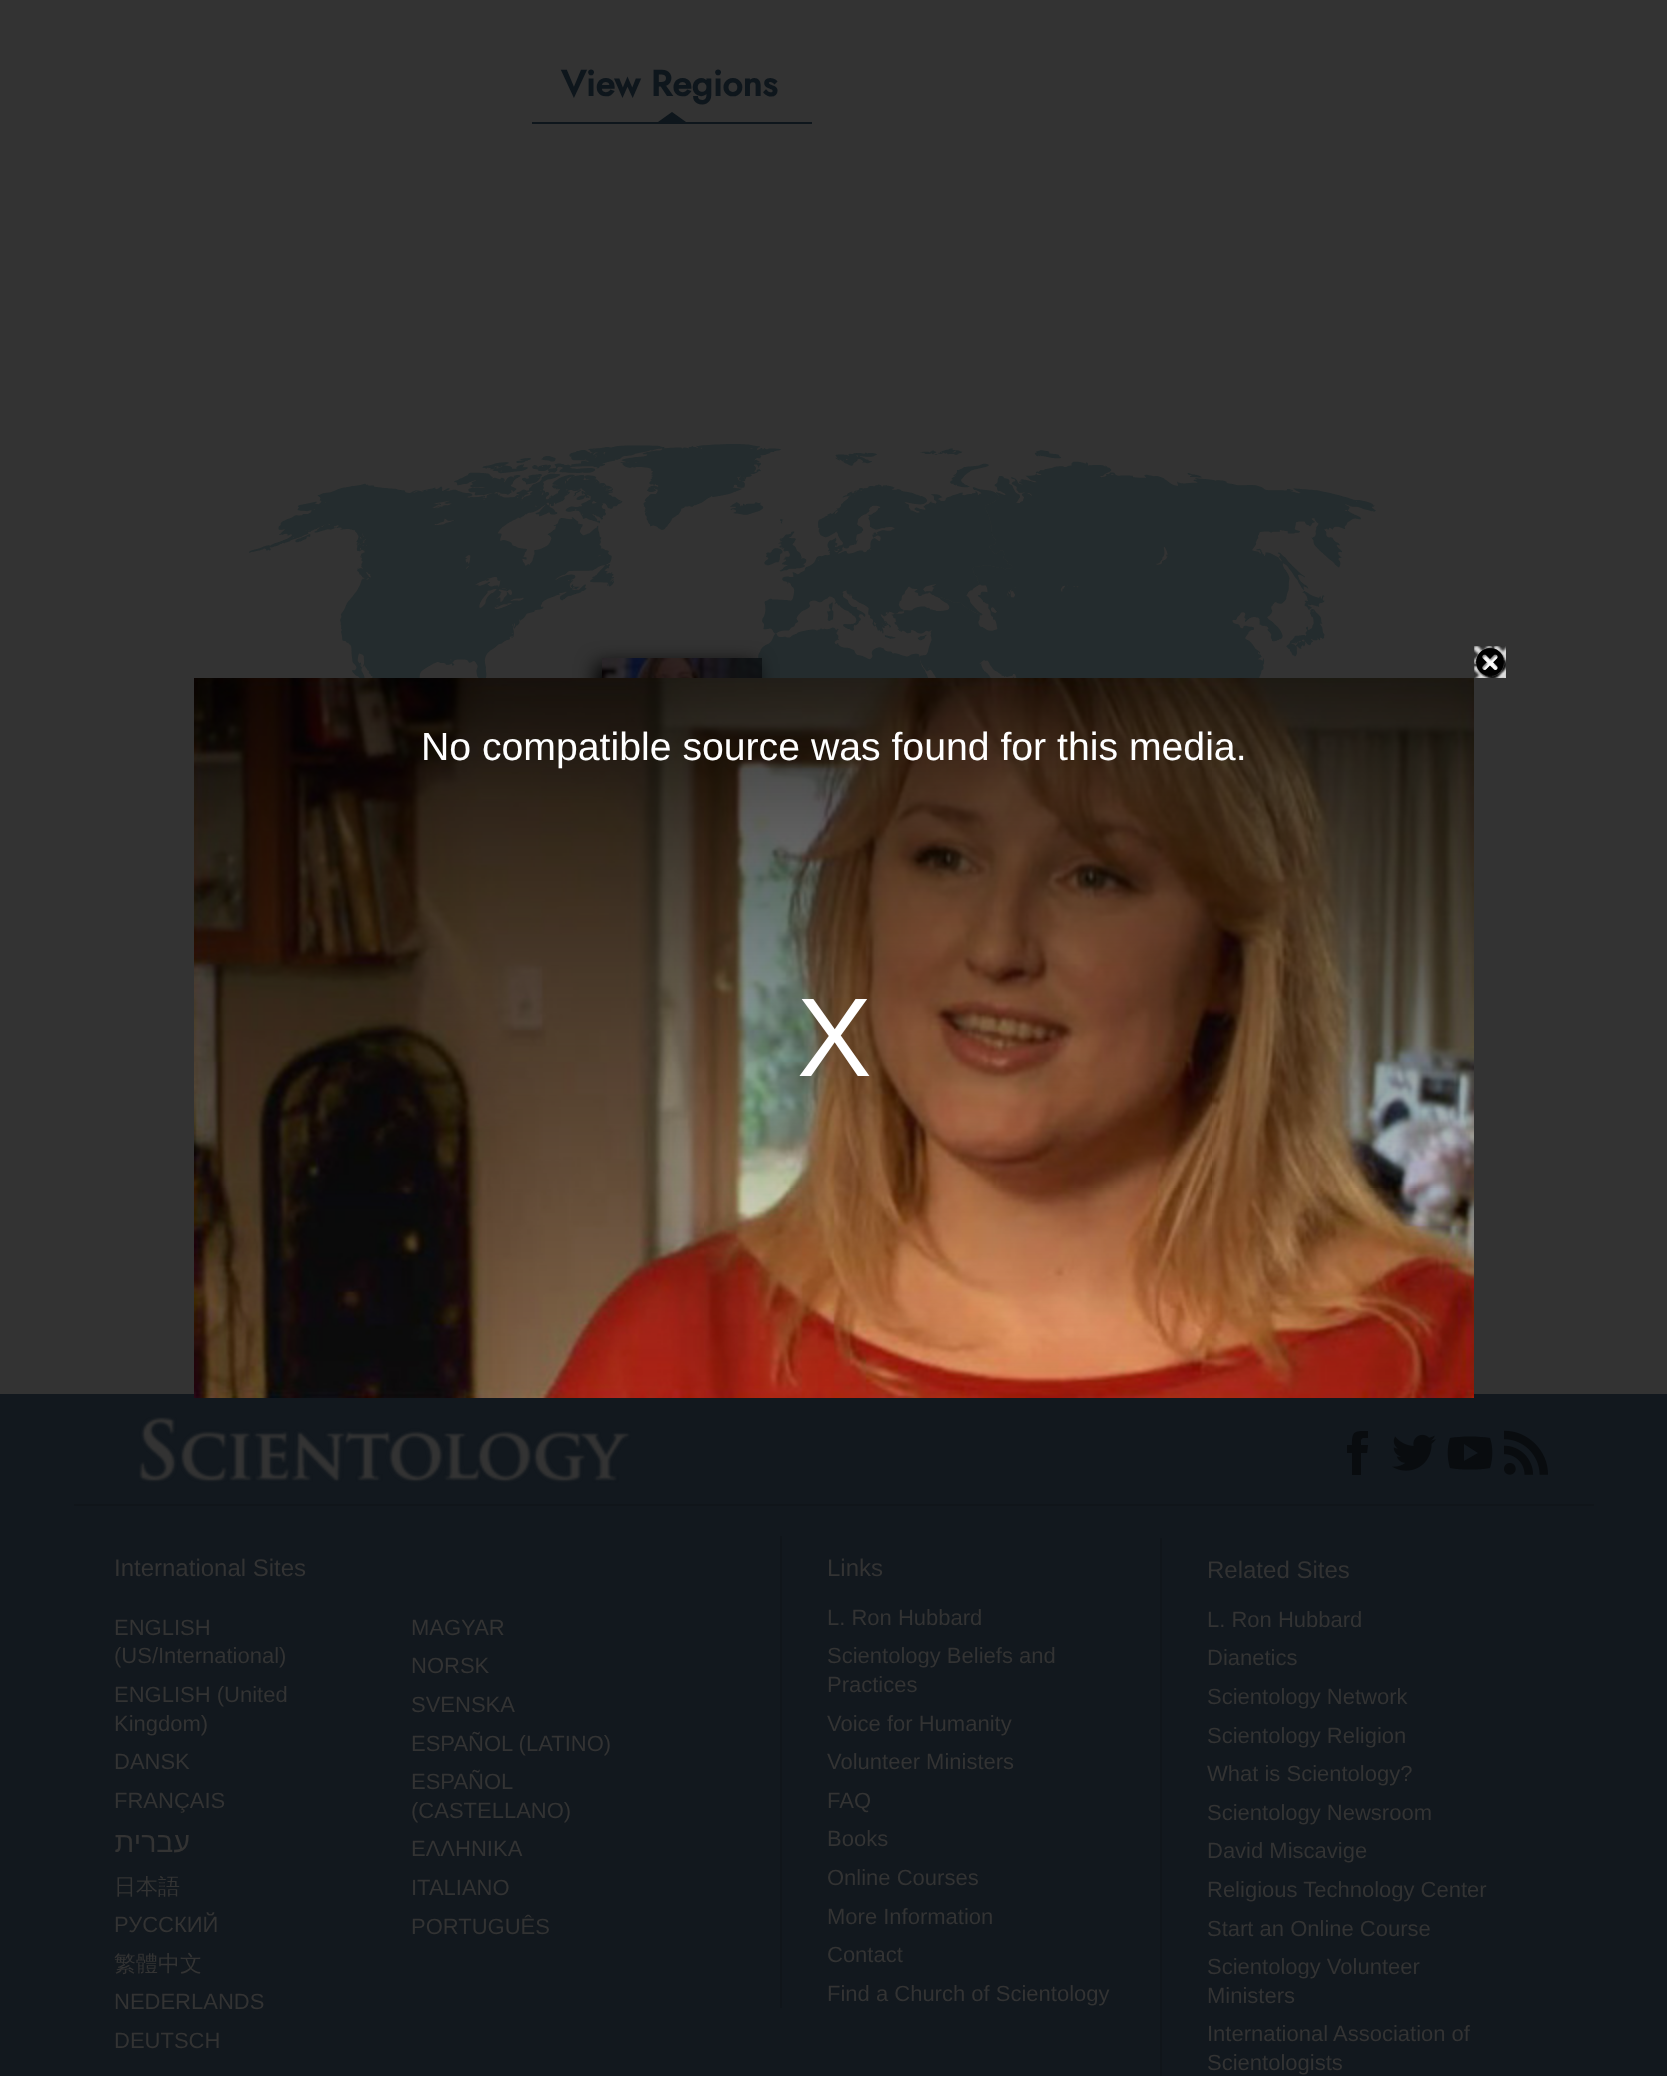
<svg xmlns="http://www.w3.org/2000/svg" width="1667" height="2076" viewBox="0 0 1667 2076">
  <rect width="100%" height="100%" fill="#333"/>
  <path d="M532 122h280v2H532z" fill="#0e161c"/>
  <path d="M686 122H658L672 112Z" fill="#0e161c"/>
  <image x="249" y="444" width="1127" height="234" href="img/1.png"/>
  <path d="M596 664h160v90H596z" fill="#000" filter="blur(10px)"/>
  <image x="602" y="658" width="160" height="20" href="img/2.png"/>
  <image x="1474" y="646" width="32" height="32" href="img/3.png"/>
  <image x="1475" y="647" width="31" height="31" href="img/4.png"/>
  <path d="M0 1394h1667v682H0z" fill="#12181e"/>
  <image x="194" y="678" width="1280" height="720" href="img/5.png"/>
  <image x="139" y="1417" width="492" height="66" href="img/6.png"/>
  <path d="M1361 1475H1352V1453H1347V1445H1352C1352 1431 1354 1431 1368 1431V1438C1360 1438 1361 1438 1361 1445H1368L1367 1453H1361Z" fill="#090c0f"/>
  <image x="1392" y="1434" width="44" height="37" href="img/7.png"/>
  <path d="M1490 1438C1477 1436 1463 1436 1450 1438C1447 1447 1447 1458 1450 1468C1463 1470 1477 1470 1490 1468C1493 1458 1493 1447 1490 1438ZM1464 1461V1444L1478 1453Z" fill="#090c0f"/>
  <image x="1504" y="1430" width="44" height="45" href="img/8.png"/>
  <path d="M74 1504h1520v2H74z" fill="#10151a"/>
  <path d="M780 1536h2v472H780z" fill="#10151a"/>
  <path d="M1160 1538h2v538H1160z" fill="#10151a"/>
  <text x="561" y="96" font-family="Jost" font-size="36" font-weight="bold" fill="#0e161c">View Regions</text>
  <text x="421" y="760" font-family="Liberation Sans" font-size="39.2" fill="#fff">No compatible source was found for this media.</text>
  <text x="797" y="1076" font-family="Liberation Sans" font-size="112" fill="#fff">X</text>
  <text x="114" y="1576" font-family="Liberation Sans" font-size="24" fill="#333">International Sites</text>
  <g font-family="Liberation Sans" font-size="22" fill="#333">
    <text x="114" y="1635">ENGLISH</text>
    <text x="114" y="1663">(US/International)</text>
    <text x="114" y="1702">ENGLISH (United</text>
    <text x="114" y="1731">Kingdom)</text>
    <text x="114" y="1769">DANSK</text>
    <text x="114" y="1808">FRANÇAIS</text>
  </g>
  <text x="190" y="1852" font-family="Liberation Sans" font-size="28.5" direction="rtl" fill="#333">עברית</text>
  <text x="114" y="1894" font-family="WenQuanYi Zen Hei" font-size="22" font-weight="500" fill="#333">日本語</text>
  <text x="114" y="1932" font-family="Liberation Sans" font-size="22" fill="#333">РУССКИЙ</text>
  <text x="114" y="1971" font-family="WenQuanYi Zen Hei" font-size="22" font-weight="500" fill="#333">繁體中文</text>
  <g font-family="Liberation Sans" font-size="22" fill="#333">
    <text x="114" y="2009">NEDERLANDS</text>
    <text x="114" y="2048">DEUTSCH</text>
    <text x="411" y="1635">MAGYAR</text>
    <text x="411" y="1673">NORSK</text>
    <text x="411" y="1712">SVENSKA</text>
    <text x="411" y="1751">ESPAÑOL (LATINO)</text>
    <text x="411" y="1789">ESPAÑOL</text>
    <text x="411" y="1818">(CASTELLANO)</text>
    <text x="411" y="1856">ΕΛΛΗΝΙΚA</text>
    <text x="411" y="1895">ITALIANO</text>
    <text x="411" y="1934">PORTUGUÊS</text>
  </g>
  <text x="827" y="1576" font-family="Liberation Sans" font-size="24" fill="#333">Links</text>
  <g font-family="Liberation Sans" font-size="22" fill="#333">
    <text x="827" y="1625">L. Ron Hubbard</text>
    <text x="827" y="1663">Scientology Beliefs and</text>
    <text x="827" y="1692">Practices</text>
    <text x="827" y="1731">Voice for Humanity</text>
    <text x="827" y="1769">Volunteer Ministers</text>
    <text x="827" y="1808">FAQ</text>
    <text x="827" y="1846">Books</text>
    <text x="827" y="1885">Online Courses</text>
    <text x="827" y="1924">More Information</text>
    <text x="827" y="1962">Contact</text>
    <text x="827" y="2001">Find a Church of Scientology</text>
  </g>
  <text x="1207" y="1578" font-family="Liberation Sans" font-size="24" fill="#333">Related Sites</text>
  <g font-family="Liberation Sans" font-size="22" fill="#333">
    <text x="1207" y="1627">L. Ron Hubbard</text>
    <text x="1207" y="1665">Dianetics</text>
    <text x="1207" y="1704">Scientology Network</text>
    <text x="1207" y="1743">Scientology Religion</text>
    <text x="1207" y="1781">What is Scientology?</text>
    <text x="1207" y="1820">Scientology Newsroom</text>
    <text x="1207" y="1858">David Miscavige</text>
    <text x="1207" y="1897">Religious Technology Center</text>
    <text x="1207" y="1936">Start an Online Course</text>
    <text x="1207" y="1974">Scientology Volunteer</text>
    <text x="1207" y="2003">Ministers</text>
    <text x="1207" y="2041">International Association of</text>
    <text x="1207" y="2070">Scientologists</text>
  </g>
</svg>
